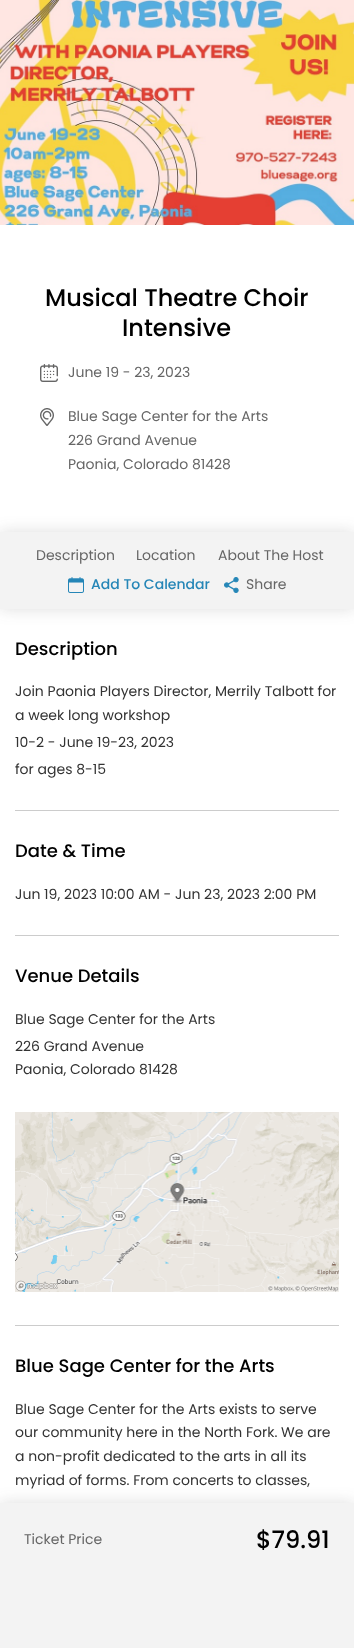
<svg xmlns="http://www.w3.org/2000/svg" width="354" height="1648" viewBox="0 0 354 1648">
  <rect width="100%" height="100%" fill="#fff"/>
  <image x="0" y="0" width="354" height="225" href="img/1.png"/>
  <image x="40" y="364" width="18" height="18" href="img/2.png"/>
  <image x="40" y="408" width="14" height="18" href="img/3.png"/>
  <path d="M0 1503h354v145H0z" fill="#3333332b" filter="blur(8px)"/>
  <path d="M0 1503h354v145H0z" fill="#f3f3f3"/>
  <path d="M0 532h354v77H0z" fill="#3333332b" filter="blur(8px)"/>
  <path d="M0 532h354v77H0z" fill="#f3f3f3"/>
  <image x="68" y="577" width="16" height="16" href="img/4.png"/>
  <image x="224" y="577" width="15" height="16" href="img/5.png"/>
  <path d="M15 810h324v1H15z" fill="#ccc"/>
  <path d="M15 935h324v1H15z" fill="#ccc"/>
  <path d="M15 1325h324v1H15z" fill="#ccc"/>
  <image x="15" y="1112" width="324" height="180" href="img/6.png"/>
  <g font-family="Poppins" font-size="24" font-weight="500" fill="#000">
    <text x="45" y="306">Musical Theatre Choir</text>
    <text x="122" y="336">Intensive</text>
  </g>
  <g font-family="Poppins" font-size="14" fill="#666">
    <text x="68" y="377">June 19 - 23, 2023</text>
    <text x="68" y="421">Blue Sage Center for the Arts</text>
    <text x="68" y="445">226 Grand Avenue</text>
    <text x="68" y="469">Paonia, Colorado 81428</text>
    <text x="24" y="1544">Ticket Price</text>
  </g>
  <text x="256" y="1548" font-family="Poppins" font-size="24" font-weight="500" fill="#000">$79.91</text>
  <g font-family="Poppins" font-size="14" fill="#666">
    <text x="36" y="560">Description</text>
    <text x="136" y="560">Location</text>
    <text x="218" y="560">About The Host</text>
  </g>
  <text x="91" y="589" font-family="Poppins" font-size="14" font-weight="500" fill="#2586b7">Add To Calendar</text>
  <text x="246" y="589" font-family="Poppins" font-size="14" fill="#666">Share</text>
  <text x="15" y="655" font-family="Poppins" font-size="18" font-weight="500" fill="#000">Description</text>
  <g font-family="Poppins" font-size="14" fill="#333">
    <text x="15" y="696">Join Paonia Players Director, Merrily Talbott for</text>
    <text x="15" y="720">a week long workshop</text>
    <text x="15" y="747">10-2 - June 19-23, 2023</text>
    <text x="15" y="774">for ages 8-15</text>
  </g>
  <text x="15" y="857" font-family="Poppins" font-size="18" font-weight="500" fill="#000">Date &amp; Time</text>
  <text x="15" y="899" font-family="Poppins" font-size="14" fill="#333">Jun 19, 2023 10:00 AM - Jun 23, 2023 2:00 PM</text>
  <text x="15" y="982" font-family="Poppins" font-size="18" font-weight="500" fill="#000">Venue Details</text>
  <g font-family="Poppins" font-size="14" fill="#333">
    <text x="15" y="1024">Blue Sage Center for the Arts</text>
    <text x="15" y="1051">226 Grand Avenue</text>
    <text x="15" y="1074">Paonia, Colorado 81428</text>
  </g>
  <text x="15" y="1372" font-family="Poppins" font-size="18" font-weight="500" fill="#000">Blue Sage Center for the Arts</text>
  <g font-family="Poppins" font-size="14" fill="#333">
    <text x="15" y="1414">Blue Sage Center for the Arts exists to serve</text>
    <text x="15" y="1437">our community here in the North Fork. We are</text>
    <text x="15" y="1461">a non-profit dedicated to the arts in all its</text>
    <text x="15" y="1485">myriad of forms. From concerts to classes,</text>
  </g>
</svg>
